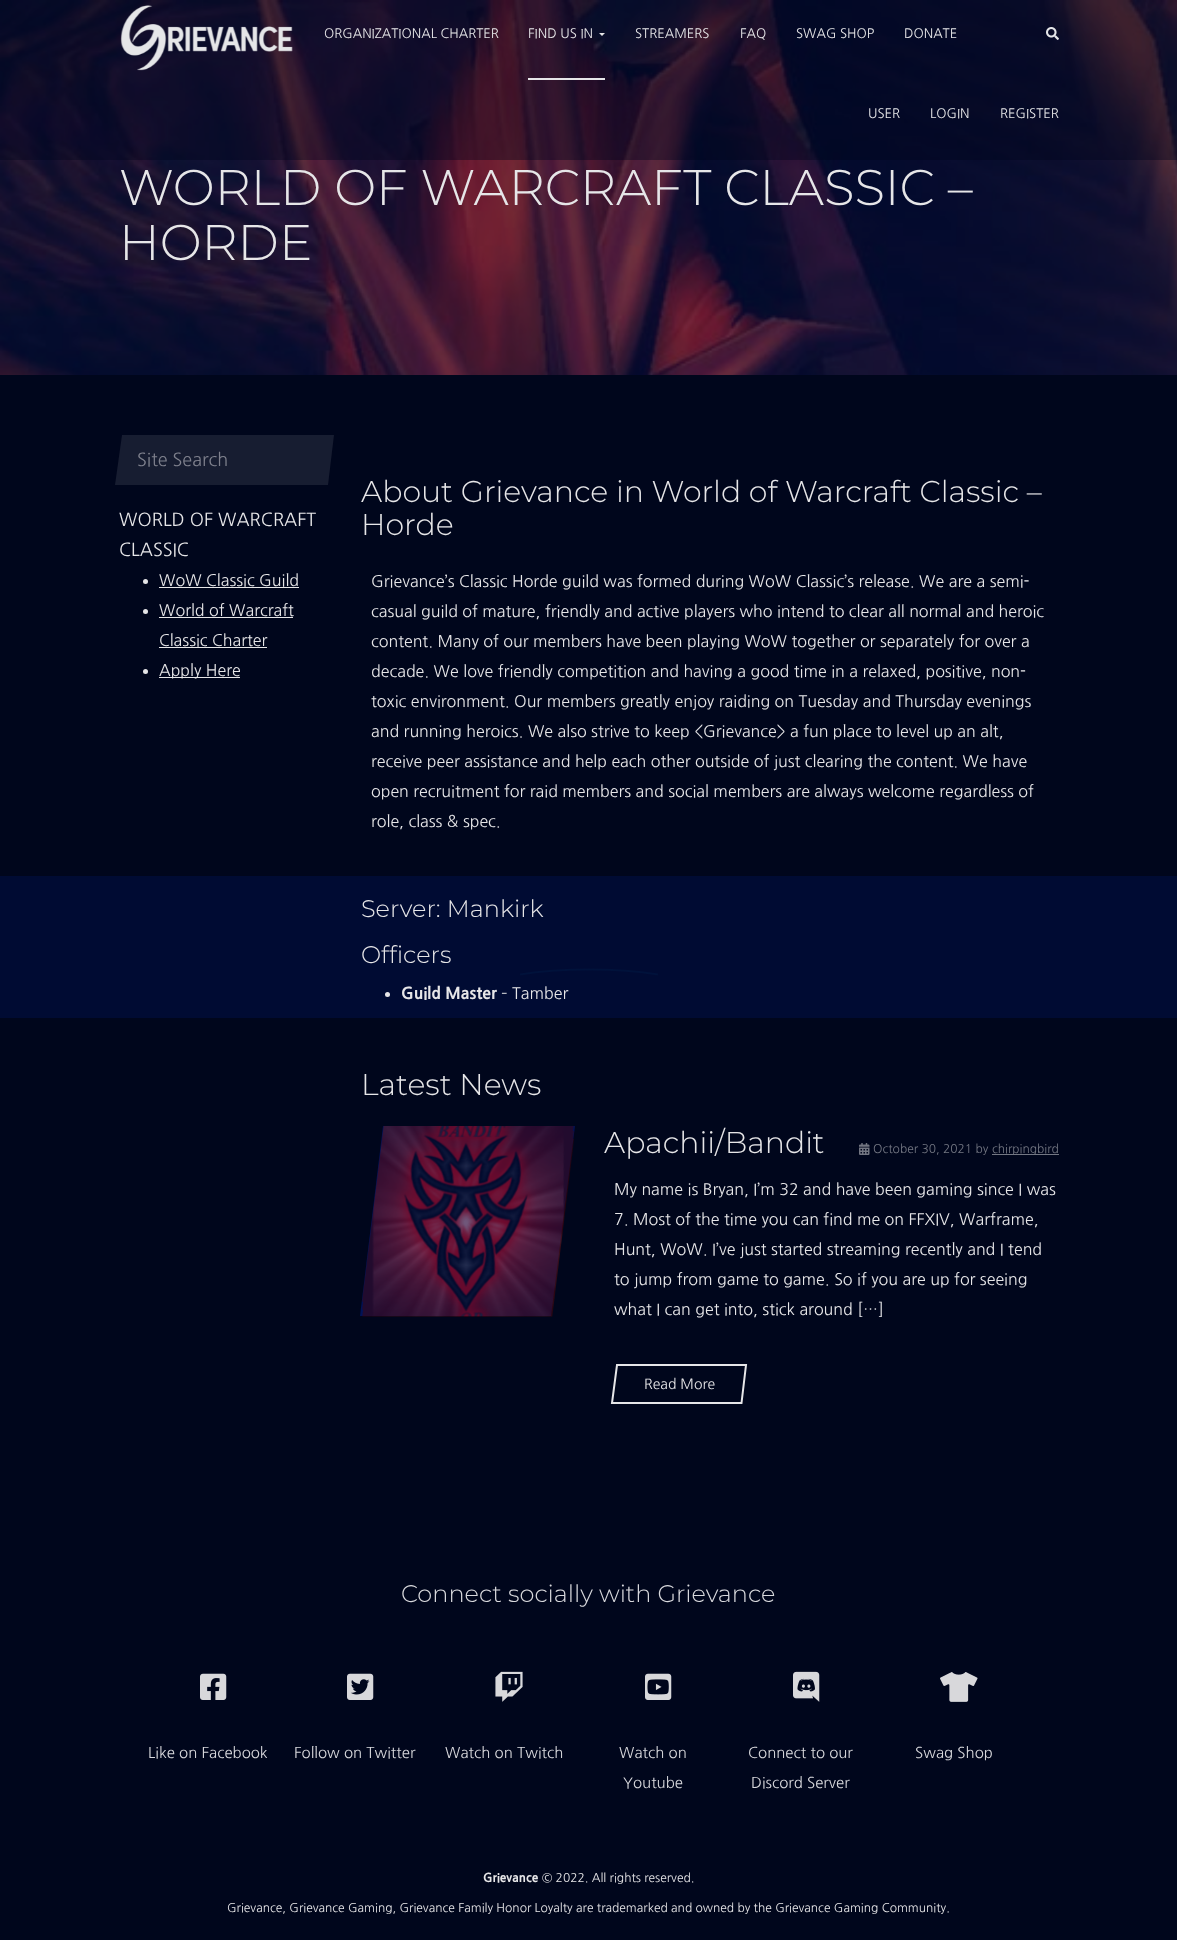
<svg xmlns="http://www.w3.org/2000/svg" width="1177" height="1940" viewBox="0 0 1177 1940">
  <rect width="100%" height="100%" fill="#00061c"/>
  <path d="M0 0h1177v375H0z" fill="#001357"/>
  <image x="0" y="0" width="1177" height="375" href="img/3.png"/>
  <path d="M0 0h1177v160H0z" fill="#00061c66"/>
  <image x="120" y="5" width="173" height="66" href="img/1.png"/>
  <path d="M599 33H605L602 36Z" fill="#e6e6e8"/>
  <path d="M528 78h77v2H528z" fill="#e6e6e8"/>
  <image x="1046" y="27" width="13" height="13" href="img/2.png"/>
  <path d="M122 435H334L328 485H115Z" fill="#171d31"/>
  <circle cx="145.5" cy="581.5" r="2.5" fill="#e6e6e8"/>
  <path d="M159 587h140v1H159z" fill="#e6e6e8"/>
  <circle cx="145.5" cy="611.5" r="2.5" fill="#e6e6e8"/>
  <path d="M159 617h134v1H159z" fill="#e6e6e8"/>
  <path d="M159 647h108v1H159z" fill="#e6e6e8"/>
  <circle cx="145.5" cy="671.5" r="2.5" fill="#e6e6e8"/>
  <path d="M159 677h81v1H159z" fill="#e6e6e8"/>
  <path d="M0 876h1177v142H0z" fill="#000b33"/>
  <circle cx="387.5" cy="994.5" r="2.5" fill="#e6e6e8"/>
  <path d="M383 1126H575L551 1316H360Z" fill="#001357"/>
  <image x="362" y="1126" width="212" height="191" href="img/4.png"/>
  <image x="859" y="1143" width="11" height="12" href="img/5.png"/>
  <path d="M992 1154h67v1H992z" fill="#737783"/>
  <path d="M617 1365H746L741.5 1403H612Z" fill="none" stroke="#e6e6e8" stroke-width="2"/>
  <image x="200" y="1673" width="27" height="27" href="img/6.png"/>
  <image x="347" y="1673" width="27" height="27" href="img/7.png"/>
  <image x="495" y="1671" width="28" height="31" href="img/8.png"/>
  <image x="645" y="1673" width="27" height="27" href="img/9.png"/>
  <image x="793" y="1671" width="27" height="31" href="img/10.png"/>
  <image x="940" y="1672" width="38" height="30" href="img/11.png"/>
  <path d="M520 974.5C538.5 971.5 563 969.5 589 969.5C615 969.5 639.5 971.5 658 974.5" fill="none" stroke="#00123b" stroke-width="2.1"/>
  <g font-family="NanumGothic" font-size="13" fill="#e6e6e8">
    <text x="324" y="38">ORGANIZATIONAL CHARTER</text>
    <text x="528" y="38">FIND US IN</text>
    <text x="635" y="38">STREAMERS</text>
    <text x="740" y="38">FAQ</text>
    <text x="796" y="38">SWAG SHOP</text>
    <text x="904" y="38">DONATE</text>
    <text x="868" y="118">USER</text>
    <text x="930" y="118">LOGIN</text>
    <text x="1000" y="118">REGISTER</text>
  </g>
  <g font-family="Montserrat" font-size="50" font-weight="300" fill="#e6e6e8">
    <text x="119" y="205">WORLD OF WARCRAFT CLASSIC –</text>
    <text x="119" y="260">HORDE</text>
  </g>
  <text x="137" y="466" font-family="NanumGothic" font-size="18" fill="#7f818d">Site Search</text>
  <g font-family="NanumGothic" font-size="18" fill="#e6e6e8">
    <text x="119" y="526">WORLD OF WARCRAFT</text>
    <text x="119" y="556">CLASSIC</text>
  </g>
  <g font-family="NanumGothic" font-size="16" fill="#e6e6e8">
    <text x="159" y="586">WoW Classic Guild</text>
    <text x="159" y="616">World of Warcraft</text>
    <text x="159" y="646">Classic Charter</text>
    <text x="159" y="676">Apply Here</text>
  </g>
  <g font-family="Montserrat" font-size="30" font-weight="300" fill="#e6e6e8">
    <text x="361" y="502">About Grievance in World of Warcraft Classic –</text>
    <text x="361" y="535">Horde</text>
  </g>
  <g font-family="NanumGothic" font-size="16" fill="#e6e6e8">
    <text x="371" y="587">Grievance’s Classic Horde guild was formed during WoW Classic’s release. We are a semi-</text>
    <text x="371" y="617">casual guild of mature, friendly and active players who intend to clear all normal and heroic</text>
    <text x="371" y="647">content. Many of our members have been playing WoW together or separately for over a</text>
    <text x="371" y="677">decade. We love friendly competition and having a good time in a relaxed, positive, non-</text>
    <text x="371" y="707">toxic environment. Our members greatly enjoy raiding on Tuesday and Thursday evenings</text>
    <text x="371" y="737">and running heroics. We also strive to keep &lt;Grievance&gt; a fun place to level up an alt,</text>
    <text x="371" y="767">receive peer assistance and help each other outside of just clearing the content. We have</text>
    <text x="371" y="797">open recruitment for raid members and social members are always welcome regardless of</text>
    <text x="371" y="827">role, class &amp; spec.</text>
  </g>
  <g font-family="Montserrat" font-size="24" font-weight="300" fill="#e6e6e8">
    <text x="361" y="917">Server: Mankirk</text>
    <text x="361" y="963">Officers</text>
  </g>
  <text x="401" y="999" font-family="NanumGothic" font-size="16" font-weight="800" fill="#e6e6e8">Guild Master</text>
  <text x="501" y="999" font-family="NanumGothic" font-size="16" fill="#e6e6e8">– Tamber</text>
  <g font-family="Montserrat" font-size="30" font-weight="300" fill="#e6e6e8">
    <text x="361" y="1095">Latest News</text>
    <text x="604" y="1153">Apachii/Bandit</text>
  </g>
  <g font-family="NanumGothic" font-size="12" fill="#737783">
    <text x="873" y="1153">October 30, 2021 by</text>
    <text x="992" y="1153">chirpingbird</text>
  </g>
  <g font-family="NanumGothic" font-size="16" fill="#e6e6e8">
    <text x="614" y="1195">My name is Bryan, I’m 32 and have been gaming since I was</text>
    <text x="614" y="1225">7. Most of the time you can find me on FFXIV, Warframe,</text>
    <text x="614" y="1255">Hunt, WoW. I’ve just started streaming recently and I tend</text>
    <text x="614" y="1285">to jump from game to game. So if you are up for seeing</text>
    <text x="614" y="1315">what I can get into, stick around […]</text>
  </g>
  <text x="644" y="1389" font-family="NanumGothic" font-size="14" fill="#e6e6e8">Read More</text>
  <text x="401" y="1602" font-family="Montserrat" font-size="24" font-weight="300" fill="#d8d9dd">Connect socially with Grievance</text>
  <g font-family="NanumGothic" font-size="15" fill="#d8d9dd">
    <text x="148" y="1758">Like on Facebook</text>
    <text x="294" y="1758">Follow on Twitter</text>
    <text x="445" y="1758">Watch on Twitch</text>
    <text x="619" y="1758">Watch on</text>
    <text x="623" y="1788">Youtube</text>
    <text x="748" y="1758">Connect to our</text>
    <text x="751" y="1788">Discord Server</text>
    <text x="915" y="1758">Swag Shop</text>
  </g>
  <text x="483" y="1882" font-family="NanumGothic" font-size="12" font-weight="800" fill="#e6e6e8">Grievance</text>
  <g font-family="NanumGothic" font-size="12" fill="#e6e6e8">
    <text x="542" y="1882">© 2022. All rights reserved.</text>
    <text x="227" y="1912">Grievance, Grievance Gaming, Grievance Family Honor Loyalty are trademarked and owned by the Grievance Gaming Community.</text>
  </g>
</svg>
